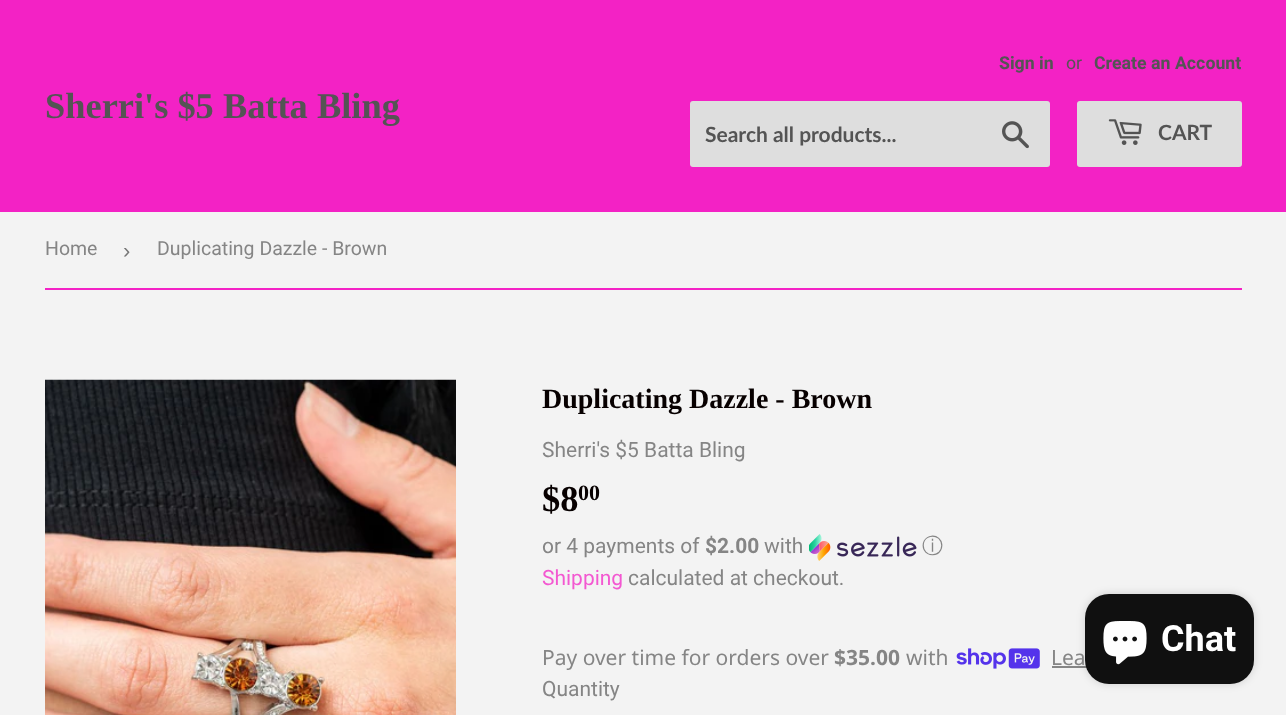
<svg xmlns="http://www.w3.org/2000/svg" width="1286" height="715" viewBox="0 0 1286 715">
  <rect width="100%" height="100%" fill="#f3f3f3"/>
  <path d="M0 0h1286v212H0z" fill="#f322c5"/>
  <rect x="690" y="101" width="360" height="66" rx="3" fill="#dedede"/>
  <image x="1002" y="121" width="27" height="28" href="img/1.png"/>
  <rect x="1077" y="101" width="165" height="66" rx="3" fill="#dedede"/>
  <image x="1108" y="119" width="34" height="26" href="img/2.png"/>
  <path d="M45 288h1197v2H45z" fill="#f322c5"/>
  <image x="45" y="379" width="411" height="336" href="img/3.png"/>
  <image x="809" y="534" width="108" height="27" href="img/4.png"/>
  <image x="956" y="648" width="84" height="21" href="img/5.png"/>
  <path d="M1052 666h35v2H1052z" fill="#858585"/>
  <rect x="1085" y="594" width="169" height="90" rx="24" fill="#00000026" filter="blur(4px)"/>
  <rect x="1085" y="594" width="169" height="90" rx="24" fill="#101010"/>
  <image x="1103" y="621" width="44" height="44" href="img/6.png"/>
  <text x="45" y="118" font-family="Liberation Serif" font-size="36.4" font-weight="bold" fill="#545454">Sherri's $5 Batta Bling</text>
  <text x="999" y="69" font-family="Roboto" font-size="17.75" font-weight="bold" fill="#545454">Sign in</text>
  <text x="1066" y="69" font-family="Roboto" font-size="17.75" fill="#545454">or</text>
  <text x="1094" y="69" font-family="Roboto" font-size="17.75" font-weight="bold" fill="#545454">Create an Account</text>
  <g font-family="Lato" font-size="21" font-weight="bold" fill="#545454">
    <text x="705" y="142">Search all products...</text>
    <text x="1158" y="140">CART</text>
  </g>
  <text x="45" y="255" font-family="Roboto" font-size="19.5" fill="#858585">Home</text>
  <text x="123" y="258" font-family="Liberation Sans" font-size="22" fill="#767676">›</text>
  <text x="157" y="255" font-family="Roboto" font-size="19.5" fill="#858585">Duplicating Dazzle - Brown</text>
  <text x="542" y="408" font-family="Liberation Serif" font-size="28" font-weight="bold" fill="#070000">Duplicating Dazzle - Brown</text>
  <text x="542" y="457" font-family="Roboto" font-size="21" fill="#858585">Sherri's $5 Batta Bling</text>
  <text x="542" y="511" font-family="Liberation Serif" font-size="36.4" font-weight="bold" fill="#070000">$8</text>
  <text x="578" y="500" font-family="Liberation Serif" font-size="22" font-weight="bold" fill="#070000">00</text>
  <text x="542" y="553" font-family="Roboto" font-size="21" fill="#858585">or 4 payments of</text>
  <text x="705" y="553" font-family="Roboto" font-size="21" font-weight="bold" fill="#858585">$2.00</text>
  <text x="764" y="553" font-family="Roboto" font-size="21" fill="#858585">with</text>
  <text x="922" y="553" font-family="WenQuanYi Zen Hei" font-size="21" font-weight="500" fill="#858585">ⓘ</text>
  <text x="542" y="585" font-family="Roboto" font-size="21" fill="#f358d1">Shipping</text>
  <text x="628" y="585" font-family="Roboto" font-size="21" fill="#858585">calculated at checkout.</text>
  <text x="542" y="665" font-family="Noto Sans" font-size="21" fill="#858585">Pay over time for orders over</text>
  <text x="834" y="665" font-family="Noto Sans" font-size="21" font-weight="bold" fill="#858585">$35.00</text>
  <g font-family="Noto Sans" font-size="21" fill="#858585">
    <text x="906" y="665">with</text>
    <text x="1051" y="665">Lea</text>
  </g>
  <text x="542" y="696" font-family="Roboto" font-size="21" fill="#858585">Quantity</text>
  <text x="1161" y="651" font-family="Roboto" font-size="36" font-weight="bold" fill="#fff">Chat</text>
</svg>
